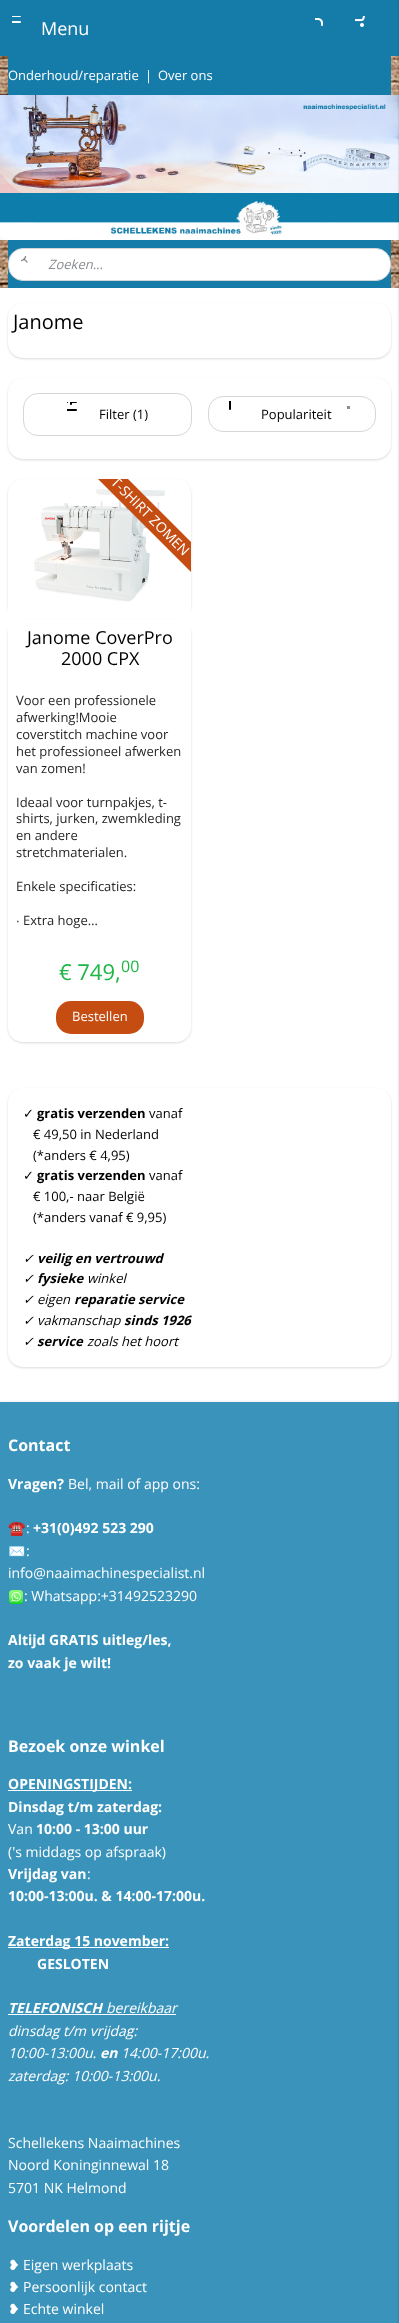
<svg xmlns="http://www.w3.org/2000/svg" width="399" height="2323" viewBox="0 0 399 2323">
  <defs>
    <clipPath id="clip1"><path d="M23 479H176C184.5 479 191 485.5 191 494V619H8V494C8 485.5 14.5 479 23 479Z"/></clipPath>
  </defs>
  <rect width="100%" height="100%" fill="#fff"/>
  <path d="M0 0h399v56H0z" fill="#157ca9"/>
  <image x="12" y="16" width="9" height="7" href="img/1.png"/>
  <image x="315" y="18" width="8" height="8" href="img/2.png"/>
  <image x="355" y="16" width="10" height="11" href="img/3.png"/>
  <image x="0" y="56" width="399" height="232" href="img/4.png"/>
  <path d="M8 56h383v39H8z" fill="#157ca9"/>
  <image x="0" y="95" width="399" height="145" href="img/5.png"/>
  <path d="M0 1401h399v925H0z" fill="#0000000d" filter="blur(1px)"/>
  <path d="M0 1402h399v921H0z" fill="#3a93ba"/>
  <path d="M399 1h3v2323H399z" fill="#00000033" filter="blur(1px)"/>
  <path d="M8 240h383v48H8z" fill="#157ca9"/>
  <rect x="8.5" y="248.5" width="382" height="32" rx="14.5" fill="#fff" stroke="#d3d5d9"/>
  <image x="21" y="256" width="7" height="7" href="img/6.png"/>
  <rect x="8" y="304" width="383" height="55" rx="15" fill="#00000026" filter="blur(1px)"/>
  <rect x="8" y="303" width="383" height="55" rx="15" fill="#fff"/>
  <rect x="8" y="379" width="383" height="81" rx="15" fill="#00000026" filter="blur(1px)"/>
  <rect x="8" y="378" width="383" height="81" rx="15" fill="#fff"/>
  <rect x="23.5" y="393.5" width="168" height="42" rx="14.5" fill="none" stroke="#d6d6d6"/>
  <image x="67" y="402" width="10" height="9" href="img/7.png"/>
  <rect x="208.5" y="396.5" width="167" height="35" rx="14.5" fill="none" stroke="#d6d6d6"/>
  <image x="229" y="401" width="2" height="9" href="img/8.png"/>
  <path d="M347 406h3v3H347z" fill="#8c8c8c"/>
  <rect x="8" y="480" width="183" height="140" rx="15" fill="#00000026" filter="blur(1px)"/>
  <path d="M23 479H176C184.5 479 191 485.5 191 494V619H8V494C8 485.5 14.5 479 23 479Z" fill="#fff"/>
  <image x="34" y="489" width="133" height="113" href="img/9.png"/>
  <path d="M191 572L98 479H128L191 542Z" fill="#c64d12"/>
  <rect x="8" y="620" width="183" height="423" rx="15" fill="#00000026" filter="blur(1px)"/>
  <path d="M8 619H191V1027C191 1035.5 184.5 1042 176 1042H23C14.5 1042 8 1035.5 8 1027Z" fill="#fff"/>
  <rect x="56" y="1001" width="88" height="33" rx="15" fill="#c64d12"/>
  <rect x="8" y="1089" width="383" height="279" rx="15" fill="#00000026" filter="blur(1px)"/>
  <rect x="8" y="1088" width="383" height="279" rx="15" fill="#fff"/>
  <image x="9" y="1590" width="14" height="14" href="img/10.png"/>
  <path d="M8 1790h124v1H8z" fill="#fff"/>
  <path d="M8 1947h161v1H8z" fill="#fff"/>
  <path d="M8 2014h168v1H8z" fill="#fff"/>
  <text x="41" y="35" font-family="Open Sans" font-size="18" fill="#fff">Menu</text>
  <g font-family="Open Sans" font-size="13" fill="#fff">
    <text x="8" y="80">Onderhoud/reparatie</text>
    <text x="145" y="80">|</text>
    <text x="158" y="80">Over ons</text>
  </g>
  <text x="48" y="269" font-family="Open Sans" font-size="13" font-style="italic" fill="#898c91">Zoeken...</text>
  <text x="13" y="329" font-family="Open Sans" font-size="20" fill="#000">Janome</text>
  <g font-family="Open Sans" font-size="13" fill="#000">
    <text x="99" y="419">Filter (1)</text>
    <text x="261" y="419">Populariteit</text>
  </g>
  <g clip-path="url(#clip1)">
    <text x="110" y="483" transform="rotate(45 110 483)" font-family="Open Sans" font-size="14" fill="#fff">T-SHIRT ZOMEN</text>
  </g>
  <g font-family="Open Sans" font-size="18" fill="#000">
    <text x="27" y="644">Janome CoverPro</text>
    <text x="61" y="665">2000 CPX</text>
  </g>
  <g font-family="Open Sans" font-size="13" fill="#262626">
    <text x="16" y="705">Voor een professionele</text>
    <text x="16" y="722">afwerking!Mooie</text>
    <text x="16" y="739">coverstitch machine voor</text>
    <text x="16" y="756">het professioneel afwerken</text>
    <text x="16" y="773">van zomen!</text>
    <text x="16" y="807">Ideaal voor turnpakjes, t-</text>
    <text x="16" y="823">shirts, jurken, zwemkleding</text>
    <text x="16" y="840">en andere</text>
    <text x="16" y="857">stretchmaterialen.</text>
    <text x="16" y="891">Enkele specificaties:</text>
  </g>
  <text x="16" y="925" font-family="Liberation Sans" font-size="13" fill="#262626">∙</text>
  <text x="23" y="925" font-family="Open Sans" font-size="13" fill="#262626">Extra hoge…</text>
  <text x="59" y="980" font-family="Open Sans" font-size="22" fill="#1eb645">€ 749,</text>
  <text x="121" y="972" font-family="Open Sans" font-size="16" fill="#1eb645">00</text>
  <text x="72" y="1021" font-family="Open Sans" font-size="13" fill="#fff">Bestellen</text>
  <text x="23" y="1118" font-family="DejaVu Sans" font-size="13" fill="#000">✓</text>
  <text x="37" y="1118" font-family="Open Sans" font-size="13" font-weight="bold" fill="#000">gratis verzenden</text>
  <g font-family="Open Sans" font-size="13" fill="#000">
    <text x="149" y="1118">vanaf</text>
    <text x="33" y="1139">€ 49,50 in Nederland</text>
    <text x="33" y="1160">(*anders € 4,95)</text>
  </g>
  <text x="23" y="1180" font-family="DejaVu Sans" font-size="13" fill="#000">✓</text>
  <text x="37" y="1180" font-family="Open Sans" font-size="13" font-weight="bold" fill="#000">gratis verzenden</text>
  <g font-family="Open Sans" font-size="13" fill="#000">
    <text x="149" y="1180">vanaf</text>
    <text x="33" y="1201">€ 100,- naar België</text>
    <text x="33" y="1222">(*anders vanaf € 9,95)</text>
  </g>
  <text x="23" y="1263" font-family="DejaVu Sans" font-size="13" font-style="italic" fill="#000">✓</text>
  <text x="37" y="1263" font-family="Open Sans" font-size="13" font-weight="bold" font-style="italic" fill="#000">veilig en vertrouwd</text>
  <text x="23" y="1283" font-family="DejaVu Sans" font-size="13" font-style="italic" fill="#000">✓</text>
  <text x="37" y="1283" font-family="Open Sans" font-size="13" font-weight="bold" font-style="italic" fill="#000">fysieke</text>
  <text x="87" y="1283" font-family="Open Sans" font-size="13" font-style="italic" fill="#000">winkel</text>
  <text x="23" y="1304" font-family="DejaVu Sans" font-size="13" font-style="italic" fill="#000">✓</text>
  <text x="37" y="1304" font-family="Open Sans" font-size="13" font-style="italic" fill="#000">eigen</text>
  <text x="74" y="1304" font-family="Open Sans" font-size="13" font-weight="bold" font-style="italic" fill="#000">reparatie service</text>
  <text x="23" y="1325" font-family="DejaVu Sans" font-size="13" font-style="italic" fill="#000">✓</text>
  <text x="37" y="1325" font-family="Open Sans" font-size="13" font-style="italic" fill="#000">vakmanschap</text>
  <text x="124" y="1325" font-family="Open Sans" font-size="13" font-weight="bold" font-style="italic" fill="#000">sinds 1926</text>
  <text x="23" y="1346" font-family="DejaVu Sans" font-size="13" font-style="italic" fill="#000">✓</text>
  <text x="37" y="1346" font-family="Open Sans" font-size="13" font-weight="bold" font-style="italic" fill="#000">service</text>
  <text x="87" y="1346" font-family="Open Sans" font-size="13" font-style="italic" fill="#000">zoals het hoort</text>
  <text x="8" y="1451" font-family="Open Sans" font-size="16" font-weight="bold" fill="#fff">Contact</text>
  <text x="8" y="1489" font-family="Open Sans" font-size="14" font-weight="bold" fill="#fff">Vragen?</text>
  <text x="68" y="1489" font-family="Open Sans" font-size="14" fill="#fff">Bel, mail of app ons:</text>
  <text x="8" y="1533" font-family="Noto Color Emoji" font-size="14" fill="#fff">☎️</text>
  <text x="26" y="1533" font-family="Open Sans" font-size="14" fill="#fff">:</text>
  <text x="33" y="1533" font-family="Open Sans" font-size="14" font-weight="bold" fill="#fff">+31(0)492 523 290</text>
  <text x="8" y="1556" font-family="Noto Color Emoji" font-size="14" fill="#fff">✉️</text>
  <g font-family="Open Sans" font-size="14" fill="#fff">
    <text x="26" y="1556">:</text>
    <text x="8" y="1578">info@naaimachinespecialist.nl</text>
    <text x="24" y="1601">: Whatsapp:+31492523290</text>
  </g>
  <g font-family="Open Sans" font-size="14" font-weight="bold" fill="#fff">
    <text x="8" y="1645">Altijd GRATIS uitleg/les,</text>
    <text x="8" y="1668">zo vaak je wilt!</text>
  </g>
  <text x="8" y="1752" font-family="Open Sans" font-size="16" font-weight="bold" fill="#fff">Bezoek onze winkel</text>
  <g font-family="Open Sans" font-size="14" font-weight="bold" fill="#fff">
    <text x="8" y="1789">OPENINGSTIJDEN:</text>
    <text x="8" y="1812">Dinsdag t/m zaterdag:</text>
  </g>
  <text x="8" y="1834" font-family="Open Sans" font-size="14" fill="#fff">Van</text>
  <text x="36" y="1834" font-family="Open Sans" font-size="14" font-weight="bold" fill="#fff">10:00 - 13:00 uur</text>
  <text x="8" y="1857" font-family="Open Sans" font-size="14" fill="#fff">('s middags op afspraak)</text>
  <text x="8" y="1879" font-family="Open Sans" font-size="14" font-weight="bold" fill="#fff">Vrijdag van</text>
  <text x="87" y="1879" font-family="Open Sans" font-size="14" fill="#fff">:</text>
  <g font-family="Open Sans" font-size="14" font-weight="bold" fill="#fff">
    <text x="8" y="1901">10:00-13:00u. &amp; 14:00-17:00u.</text>
    <text x="8" y="1946">Zaterdag 15 november:</text>
    <text x="37" y="1969">GESLOTEN</text>
  </g>
  <text x="8" y="2013" font-family="Open Sans" font-size="14" font-weight="bold" font-style="italic" fill="#fff">TELEFONISCH</text>
  <g font-family="Open Sans" font-size="14" font-style="italic" fill="#fff">
    <text x="106" y="2013">bereikbaar</text>
    <text x="8" y="2036">dinsdag t/m vrijdag:</text>
    <text x="8" y="2058">10:00-13:00u.</text>
  </g>
  <text x="100" y="2058" font-family="Open Sans" font-size="14" font-weight="bold" font-style="italic" fill="#fff">en</text>
  <g font-family="Open Sans" font-size="14" font-style="italic" fill="#fff">
    <text x="121" y="2058">14:00-17:00u.</text>
    <text x="8" y="2081">zaterdag: 10:00-13:00u.</text>
  </g>
  <g font-family="Open Sans" font-size="14" fill="#fff">
    <text x="8" y="2148">Schellekens Naaimachines</text>
    <text x="8" y="2170">Noord Koninginnewal 18</text>
    <text x="8" y="2193">5701 NK Helmond</text>
  </g>
  <text x="8" y="2232" font-family="Open Sans" font-size="16" font-weight="bold" fill="#fff">Voordelen op een rijtje</text>
  <text x="8" y="2270" font-family="DejaVu Sans" font-size="14" fill="#fff">❥</text>
  <text x="23" y="2270" font-family="Open Sans" font-size="14" fill="#fff">Eigen werkplaats</text>
  <text x="8" y="2292" font-family="DejaVu Sans" font-size="14" fill="#fff">❥</text>
  <text x="23" y="2292" font-family="Open Sans" font-size="14" fill="#fff">Persoonlijk contact</text>
  <text x="8" y="2314" font-family="DejaVu Sans" font-size="14" fill="#fff">❥</text>
  <text x="23" y="2314" font-family="Open Sans" font-size="14" fill="#fff">Echte winkel</text>
</svg>
